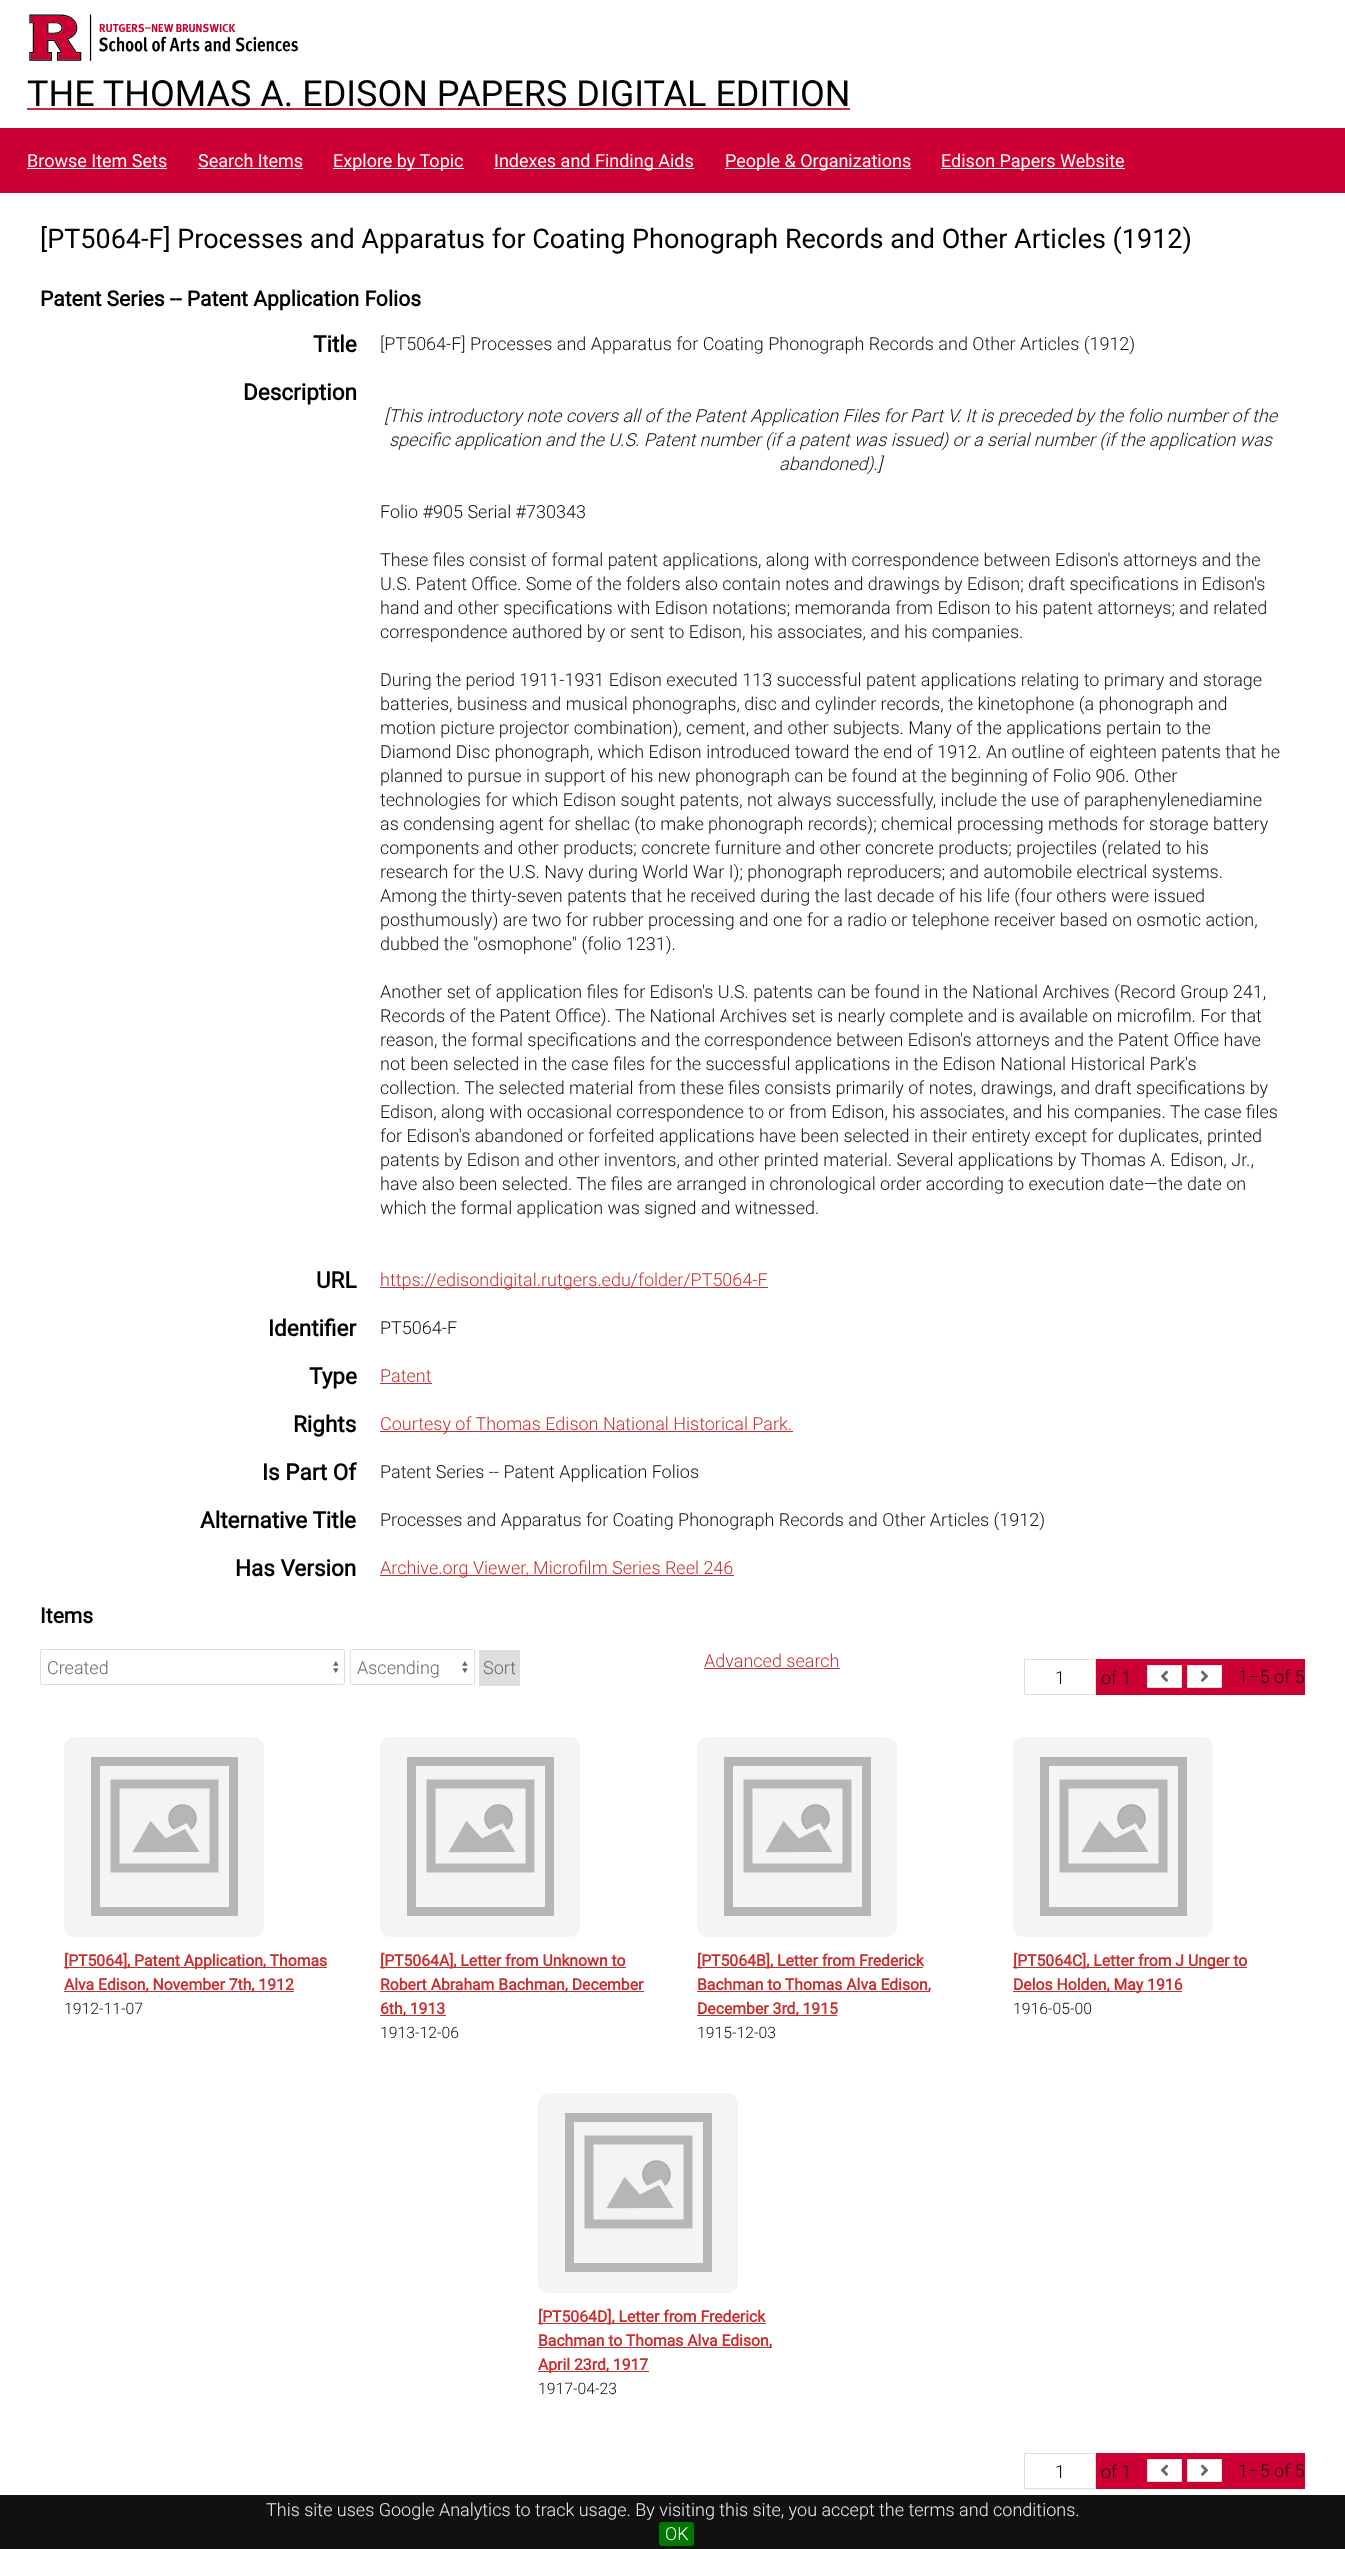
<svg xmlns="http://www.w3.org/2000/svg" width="1345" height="2549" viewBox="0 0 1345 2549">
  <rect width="100%" height="100%" fill="#fff"/>
  <image x="29" y="14" width="269" height="47" href="img/1.png"/>
  <path d="M27 108h823v2H27z" fill="#c72e2e"/>
  <path d="M0 128h1345v65H0z" fill="#c03"/>
  <path d="M27 168h140v1H27z" fill="#fff"/>
  <path d="M198 168h105v1H198z" fill="#fff"/>
  <path d="M333 168h131v1H333z" fill="#fff"/>
  <path d="M494 168h200v1H494z" fill="#fff"/>
  <path d="M725 168h186v1H725z" fill="#fff"/>
  <path d="M941 168h184v1H941z" fill="#fff"/>
  <path d="M380 1287h388v1H380z" fill="#c72e2e"/>
  <path d="M380 1383h52v1H380z" fill="#c72e2e"/>
  <path d="M380 1431h413v1H380z" fill="#c72e2e"/>
  <path d="M380 1575h354v1H380z" fill="#c72e2e"/>
  <image x="333" y="1661" width="5" height="12" href="img/2.png"/>
  <rect x="40.5" y="1649.5" width="304" height="35" rx="1.5" fill="none" stroke="#dedede"/>
  <image x="462" y="1661" width="6" height="12" href="img/3.png"/>
  <rect x="350.5" y="1649.5" width="124" height="35" rx="1.5" fill="none" stroke="#dedede"/>
  <path d="M479 1650h41v36H479z" fill="#dedede"/>
  <path d="M704 1668h136v1H704z" fill="#c72e2e"/>
  <path d="M1096 1659h209v36H1096z" fill="#c03"/>
  <path d="M1024.5 1659.5h71v35H1024.5z" fill="none" stroke="#dedede"/>
  <path d="M1147.5 1665.5h34v22H1147.5z" fill="#fff" stroke="#dedede"/>
  <image x="1160" y="1670" width="9" height="12" href="img/4.png"/>
  <path d="M1187.5 1665.5h34v22H1187.5z" fill="#fff" stroke="#dedede"/>
  <image x="1200" y="1670" width="9" height="12" href="img/5.png"/>
  <image x="64" y="1737" width="200" height="200" href="img/6.png"/>
  <path d="M64 1967h263v1H64z" fill="#c72e2e"/>
  <path d="M64 1991h230v1H64z" fill="#c72e2e"/>
  <image x="380" y="1737" width="200" height="200" href="img/7.png"/>
  <path d="M380 1967h246v1H380z" fill="#c72e2e"/>
  <path d="M380 1991h264v1H380z" fill="#c72e2e"/>
  <path d="M380 2015h66v1H380z" fill="#c72e2e"/>
  <image x="697" y="1737" width="200" height="200" href="img/8.png"/>
  <path d="M697 1967h226v1H697z" fill="#c72e2e"/>
  <path d="M697 1991h233v1H697z" fill="#c72e2e"/>
  <path d="M697 2015h140v1H697z" fill="#c72e2e"/>
  <image x="1013" y="1737" width="200" height="200" href="img/9.png"/>
  <path d="M1013 1967h234v1H1013z" fill="#c72e2e"/>
  <path d="M1013 1991h169v1H1013z" fill="#c72e2e"/>
  <image x="538" y="2093" width="200" height="200" href="img/10.png"/>
  <path d="M538 2323h228v1H538z" fill="#c72e2e"/>
  <path d="M538 2347h234v1H538z" fill="#c72e2e"/>
  <path d="M538 2371h111v1H538z" fill="#c72e2e"/>
  <path d="M1096 2453h209v36H1096z" fill="#c03"/>
  <path d="M1024.5 2453.5h71v35H1024.5z" fill="none" stroke="#dedede"/>
  <path d="M1147.5 2459.5h34v22H1147.5z" fill="#fff" stroke="#dedede"/>
  <image x="1160" y="2464" width="9" height="12" href="img/4.png"/>
  <path d="M1187.5 2459.5h34v22H1187.5z" fill="#fff" stroke="#dedede"/>
  <image x="1200" y="2464" width="9" height="12" href="img/5.png"/>
  <path d="M0 2495h1345v54H0z" fill="#111"/>
  <rect x="659" y="2522" width="35" height="24" rx="3" fill="#070"/>
  <text x="27" y="106" font-family="Roboto" font-size="36" fill="#000">THE THOMAS A. EDISON PAPERS DIGITAL EDITION</text>
  <g font-family="Roboto" font-size="18" fill="#fff">
    <text x="27" y="167">Browse Item Sets</text>
    <text x="198" y="167">Search Items</text>
    <text x="333" y="167">Explore by Topic</text>
    <text x="494" y="167">Indexes and Finding Aids</text>
    <text x="725" y="167">People &amp; Organizations</text>
    <text x="941" y="167">Edison Papers Website</text>
  </g>
  <text x="40" y="248" font-family="Roboto" font-size="27" fill="#000">[PT5064-F] Processes and Apparatus for Coating Phonograph Records and Other Articles (1912)</text>
  <text x="40" y="306" font-family="Roboto" font-size="21.1" font-weight="bold" fill="#000">Patent Series -- Patent Application Folios</text>
  <text x="313" y="352" font-family="Roboto" font-size="22.5" font-weight="bold" fill="#000">Title</text>
  <text x="380" y="350" font-family="Roboto" font-size="18" font-weight="300" fill="#111">[PT5064-F] Processes and Apparatus for Coating Phonograph Records and Other Articles (1912)</text>
  <text x="243" y="400" font-family="Roboto" font-size="22.5" font-weight="bold" fill="#000">Description</text>
  <g font-family="Roboto" font-size="18" font-weight="300" font-style="italic" fill="#111">
    <text x="384" y="422">[This introductory note covers all of the Patent Application Files for Part V. It is preceded by the folio number of the</text>
    <text x="389" y="446">specific application and the U.S. Patent number (if a patent was issued) or a serial number (if the application was</text>
    <text x="779" y="470">abandoned).]</text>
  </g>
  <g font-family="Roboto" font-size="18" font-weight="300" fill="#111">
    <text x="380" y="518">Folio #905 Serial #730343</text>
    <text x="380" y="566">These files consist of formal patent applications, along with correspondence between Edison's attorneys and the</text>
    <text x="380" y="590">U.S. Patent Office. Some of the folders also contain notes and drawings by Edison; draft specifications in Edison's</text>
    <text x="380" y="614">hand and other specifications with Edison notations; memoranda from Edison to his patent attorneys; and related</text>
    <text x="380" y="638">correspondence authored by or sent to Edison, his associates, and his companies.</text>
    <text x="380" y="686">During the period 1911-1931 Edison executed 113 successful patent applications relating to primary and storage</text>
    <text x="380" y="710">batteries, business and musical phonographs, disc and cylinder records, the kinetophone (a phonograph and</text>
    <text x="380" y="734">motion picture projector combination), cement, and other subjects. Many of the applications pertain to the</text>
    <text x="380" y="758">Diamond Disc phonograph, which Edison introduced toward the end of 1912. An outline of eighteen patents that he</text>
    <text x="380" y="782">planned to pursue in support of his new phonograph can be found at the beginning of Folio 906. Other</text>
    <text x="380" y="806">technologies for which Edison sought patents, not always successfully, include the use of paraphenylenediamine</text>
    <text x="380" y="830">as condensing agent for shellac (to make phonograph records); chemical processing methods for storage battery</text>
    <text x="380" y="854">components and other products; concrete furniture and other concrete products; projectiles (related to his</text>
    <text x="380" y="878">research for the U.S. Navy during World War I); phonograph reproducers; and automobile electrical systems.</text>
    <text x="380" y="902">Among the thirty-seven patents that he received during the last decade of his life (four others were issued</text>
    <text x="380" y="926">posthumously) are two for rubber processing and one for a radio or telephone receiver based on osmotic action,</text>
    <text x="380" y="950">dubbed the "osmophone" (folio 1231).</text>
    <text x="380" y="998">Another set of application files for Edison's U.S. patents can be found in the National Archives (Record Group 241,</text>
    <text x="380" y="1022">Records of the Patent Office). The National Archives set is nearly complete and is available on microfilm. For that</text>
    <text x="380" y="1046">reason, the formal specifications and the correspondence between Edison's attorneys and the Patent Office have</text>
    <text x="380" y="1070">not been selected in the case files for the successful applications in the Edison National Historical Park's</text>
    <text x="380" y="1094">collection. The selected material from these files consists primarily of notes, drawings, and draft specifications by</text>
    <text x="380" y="1118">Edison, along with occasional correspondence to or from Edison, his associates, and his companies. The case files</text>
    <text x="380" y="1142">for Edison's abandoned or forfeited applications have been selected in their entirety except for duplicates, printed</text>
    <text x="380" y="1166">patents by Edison and other inventors, and other printed material. Several applications by Thomas A. Edison, Jr.,</text>
    <text x="380" y="1190">have also been selected. The files are arranged in chronological order according to execution date—the date on</text>
    <text x="380" y="1214">which the formal application was signed and witnessed.</text>
  </g>
  <text x="316" y="1288" font-family="Roboto" font-size="22.5" font-weight="bold" fill="#000">URL</text>
  <text x="380" y="1286" font-family="Roboto" font-size="18" font-weight="300" fill="#c72e2e">https://edisondigital.rutgers.edu/folder/PT5064-F</text>
  <text x="268" y="1336" font-family="Roboto" font-size="22.5" font-weight="bold" fill="#000">Identifier</text>
  <text x="380" y="1334" font-family="Roboto" font-size="18" font-weight="300" fill="#111">PT5064-F</text>
  <text x="309" y="1384" font-family="Roboto" font-size="22.5" font-weight="bold" fill="#000">Type</text>
  <text x="380" y="1382" font-family="Roboto" font-size="18" font-weight="300" fill="#c72e2e">Patent</text>
  <text x="293" y="1432" font-family="Roboto" font-size="22.5" font-weight="bold" fill="#000">Rights</text>
  <text x="380" y="1430" font-family="Roboto" font-size="18" font-weight="300" fill="#c72e2e">Courtesy of Thomas Edison National Historical Park.</text>
  <text x="262" y="1480" font-family="Roboto" font-size="22.5" font-weight="bold" fill="#000">Is Part Of</text>
  <text x="380" y="1478" font-family="Roboto" font-size="18" font-weight="300" fill="#111">Patent Series -- Patent Application Folios</text>
  <text x="200" y="1528" font-family="Roboto" font-size="22.5" font-weight="bold" fill="#000">Alternative Title</text>
  <text x="380" y="1526" font-family="Roboto" font-size="18" font-weight="300" fill="#111">Processes and Apparatus for Coating Phonograph Records and Other Articles (1912)</text>
  <text x="235" y="1576" font-family="Roboto" font-size="22.5" font-weight="bold" fill="#000">Has Version</text>
  <text x="380" y="1574" font-family="Roboto" font-size="18" font-weight="300" fill="#c72e2e">Archive.org Viewer, Microfilm Series Reel 246</text>
  <text x="40" y="1623" font-family="Roboto" font-size="21.1" font-weight="bold" fill="#000">Items</text>
  <g font-family="Roboto" font-size="18" font-weight="300" fill="#676767">
    <text x="47" y="1674">Created</text>
    <text x="357" y="1674">Ascending</text>
    <text x="483" y="1674">Sort</text>
  </g>
  <text x="704" y="1667" font-family="Roboto" font-size="18" font-weight="300" fill="#c72e2e">Advanced search</text>
  <text x="1055" y="1684" font-family="Roboto" font-size="18" font-weight="300" fill="#000">1</text>
  <g font-family="Roboto" font-size="18" font-weight="300" fill="#111">
    <text x="1101" y="1684">of 1</text>
    <text x="1238" y="1683">1–5 of 5</text>
  </g>
  <g font-family="Roboto" font-size="15.75" font-weight="bold" fill="#c72e2e">
    <text x="64" y="1966">[PT5064], Patent Application, Thomas</text>
    <text x="64" y="1990">Alva Edison, November 7th, 1912</text>
  </g>
  <text x="64" y="2014" font-family="Roboto" font-size="15.75" font-weight="300" fill="#111">1912-11-07</text>
  <g font-family="Roboto" font-size="15.75" font-weight="bold" fill="#c72e2e">
    <text x="380" y="1966">[PT5064A], Letter from Unknown to</text>
    <text x="380" y="1990">Robert Abraham Bachman, December</text>
    <text x="380" y="2014">6th, 1913</text>
  </g>
  <text x="380" y="2038" font-family="Roboto" font-size="15.75" font-weight="300" fill="#111">1913-12-06</text>
  <g font-family="Roboto" font-size="15.75" font-weight="bold" fill="#c72e2e">
    <text x="697" y="1966">[PT5064B], Letter from Frederick</text>
    <text x="697" y="1990">Bachman to Thomas Alva Edison,</text>
    <text x="697" y="2014">December 3rd, 1915</text>
  </g>
  <text x="697" y="2038" font-family="Roboto" font-size="15.75" font-weight="300" fill="#111">1915-12-03</text>
  <g font-family="Roboto" font-size="15.75" font-weight="bold" fill="#c72e2e">
    <text x="1013" y="1966">[PT5064C], Letter from J Unger to</text>
    <text x="1013" y="1990">Delos Holden, May 1916</text>
  </g>
  <text x="1013" y="2014" font-family="Roboto" font-size="15.75" font-weight="300" fill="#111">1916-05-00</text>
  <g font-family="Roboto" font-size="15.75" font-weight="bold" fill="#c72e2e">
    <text x="538" y="2322">[PT5064D], Letter from Frederick</text>
    <text x="538" y="2346">Bachman to Thomas Alva Edison,</text>
    <text x="538" y="2370">April 23rd, 1917</text>
  </g>
  <text x="538" y="2394" font-family="Roboto" font-size="15.75" font-weight="300" fill="#111">1917-04-23</text>
  <text x="1055" y="2478" font-family="Roboto" font-size="18" font-weight="300" fill="#000">1</text>
  <g font-family="Roboto" font-size="18" font-weight="300" fill="#111">
    <text x="1101" y="2478">of 1</text>
    <text x="1238" y="2477">1–5 of 5</text>
  </g>
  <text x="266" y="2516" font-family="Roboto" font-size="18" font-weight="300" fill="#eee">This site uses Google Analytics to track usage. By visiting this site, you accept the terms and conditions.</text>
  <text x="665" y="2540" font-family="Roboto" font-size="18" font-weight="300" fill="#fff">OK</text>
</svg>
